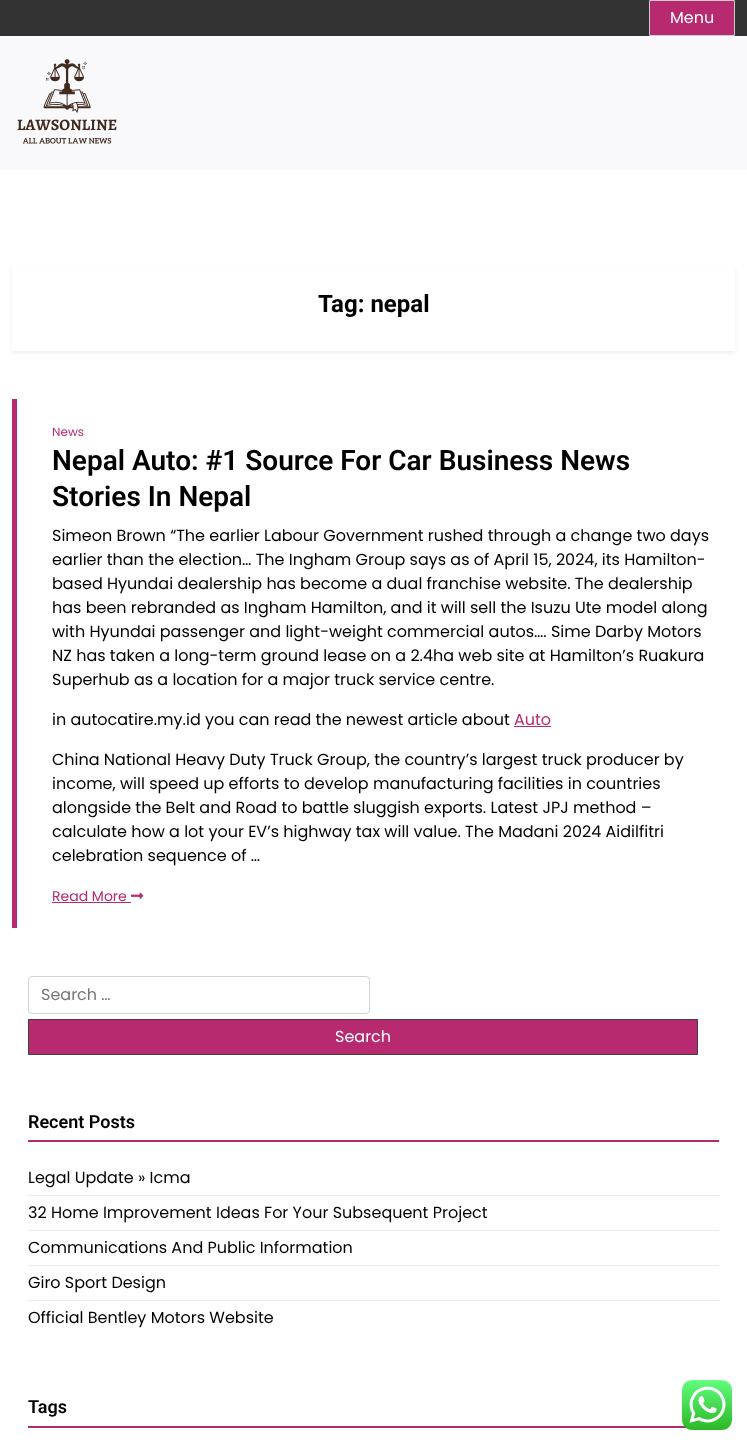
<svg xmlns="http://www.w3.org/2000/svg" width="747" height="1445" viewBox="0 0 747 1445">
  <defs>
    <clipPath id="clip1"><path d="M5 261H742V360H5ZM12 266H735V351H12Z" clip-rule="evenodd"/></clipPath>
  </defs>
  <rect width="100%" height="100%" fill="#fff"/>
  <path d="M0 0h747v36H0z" fill="#333"/>
  <path d="M649.5 0.5h85v35H649.5z" fill="#b82a6f" stroke="#ccc"/>
  <path d="M0 36h747v134H0z" fill="#f9f9fc"/>
  <image x="17" y="59" width="100" height="85" href="img/1.png"/>
  <g clip-path="url(#clip1)">
    <path d="M12 268h723v85H12z" fill="#00000012" filter="blur(2px)"/>
  </g>
  <path d="M12 399h5v529H12z" fill="#b82a6f"/>
  <path d="M514 726h37v1H514z" fill="#b82a6f"/>
  <path d="M52 902h79v1H52z" fill="#b82a6f"/>
  <image x="131" y="892" width="13" height="7" href="img/2.png"/>
  <rect x="28.5" y="976.5" width="341" height="37" rx="3.5" fill="none" stroke="#ced4da"/>
  <path d="M28.5 1019.5h669v35H28.5z" fill="#b82a6f" stroke="#3c3e41"/>
  <path d="M28 1140h691v2H28z" fill="#b82a6f"/>
  <path d="M28 1195h691v1H28z" fill="#ededed"/>
  <path d="M28 1230h691v1H28z" fill="#ededed"/>
  <path d="M28 1265h691v1H28z" fill="#ededed"/>
  <path d="M28 1300h691v1H28z" fill="#ededed"/>
  <path d="M28 1426h658v2H28z" fill="#b82a6f"/>
  <image x="682" y="1380" width="50" height="50" href="img/3.png"/>
  <text x="670" y="23" font-family="Poppins" font-size="16" fill="#fff">Menu</text>
  <text x="318" y="312" font-family="Roboto" font-size="24" font-weight="bold" fill="#000">Tag: nepal</text>
  <text x="52" y="436" font-family="Poppins" font-size="12" fill="#b82a6f">News</text>
  <g font-family="Roboto" font-size="28" font-weight="600" fill="#000">
    <text x="52" y="470">Nepal Auto: #1 Source For Car Business News</text>
    <text x="52" y="506">Stories In Nepal</text>
  </g>
  <g font-family="Poppins" font-size="16" fill="#000">
    <text x="52" y="541">Simeon Brown “The earlier Labour Government rushed through a change two days</text>
    <text x="52" y="565">earlier than the election… The Ingham Group says as of April 15, 2024, its Hamilton-</text>
    <text x="52" y="589">based Hyundai dealership has become a dual franchise website. The dealership</text>
    <text x="52" y="613">has been rebranded as Ingham Hamilton, and it will sell the Isuzu Ute model along</text>
    <text x="52" y="637">with Hyundai passenger and light-weight commercial autos…. Sime Darby Motors</text>
    <text x="52" y="661">NZ has taken a long-term ground lease on a 2.4ha web site at Hamilton’s Ruakura</text>
    <text x="52" y="685">Superhub as a location for a major truck service centre.</text>
    <text x="52" y="725">in autocatire.my.id you can read the newest article about</text>
  </g>
  <text x="514" y="725" font-family="Poppins" font-size="16" fill="#b82a6f">Auto</text>
  <g font-family="Poppins" font-size="16" fill="#000">
    <text x="52" y="765">China National Heavy Duty Truck Group, the country’s largest truck producer by</text>
    <text x="52" y="789">income, will speed up efforts to develop manufacturing facilities in countries</text>
    <text x="52" y="813">alongside the Belt and Road to battle sluggish exports. Latest JPJ method –</text>
    <text x="52" y="837">calculate how a lot your EV’s highway tax will value. The Madani 2024 Aidilfitri</text>
    <text x="52" y="861">celebration sequence of …</text>
  </g>
  <text x="52" y="901" font-family="Poppins" font-size="14" fill="#b82a6f">Read More</text>
  <text x="41" y="1000" font-family="Poppins" font-size="16" fill="#757575">Search …</text>
  <text x="335" y="1042" font-family="Poppins" font-size="16" fill="#fff">Search</text>
  <text x="28" y="1128" font-family="Roboto" font-size="18" font-weight="600" fill="#000">Recent Posts</text>
  <g font-family="Poppins" font-size="16" fill="#000">
    <text x="28" y="1183">Legal Update » Icma</text>
    <text x="28" y="1218">32 Home Improvement Ideas For Your Subsequent Project</text>
    <text x="28" y="1253">Communications And Public Information</text>
    <text x="28" y="1288">Giro Sport Design</text>
    <text x="28" y="1323">Official Bentley Motors Website</text>
  </g>
  <text x="28" y="1413" font-family="Roboto" font-size="18" font-weight="600" fill="#000">Tags</text>
</svg>
